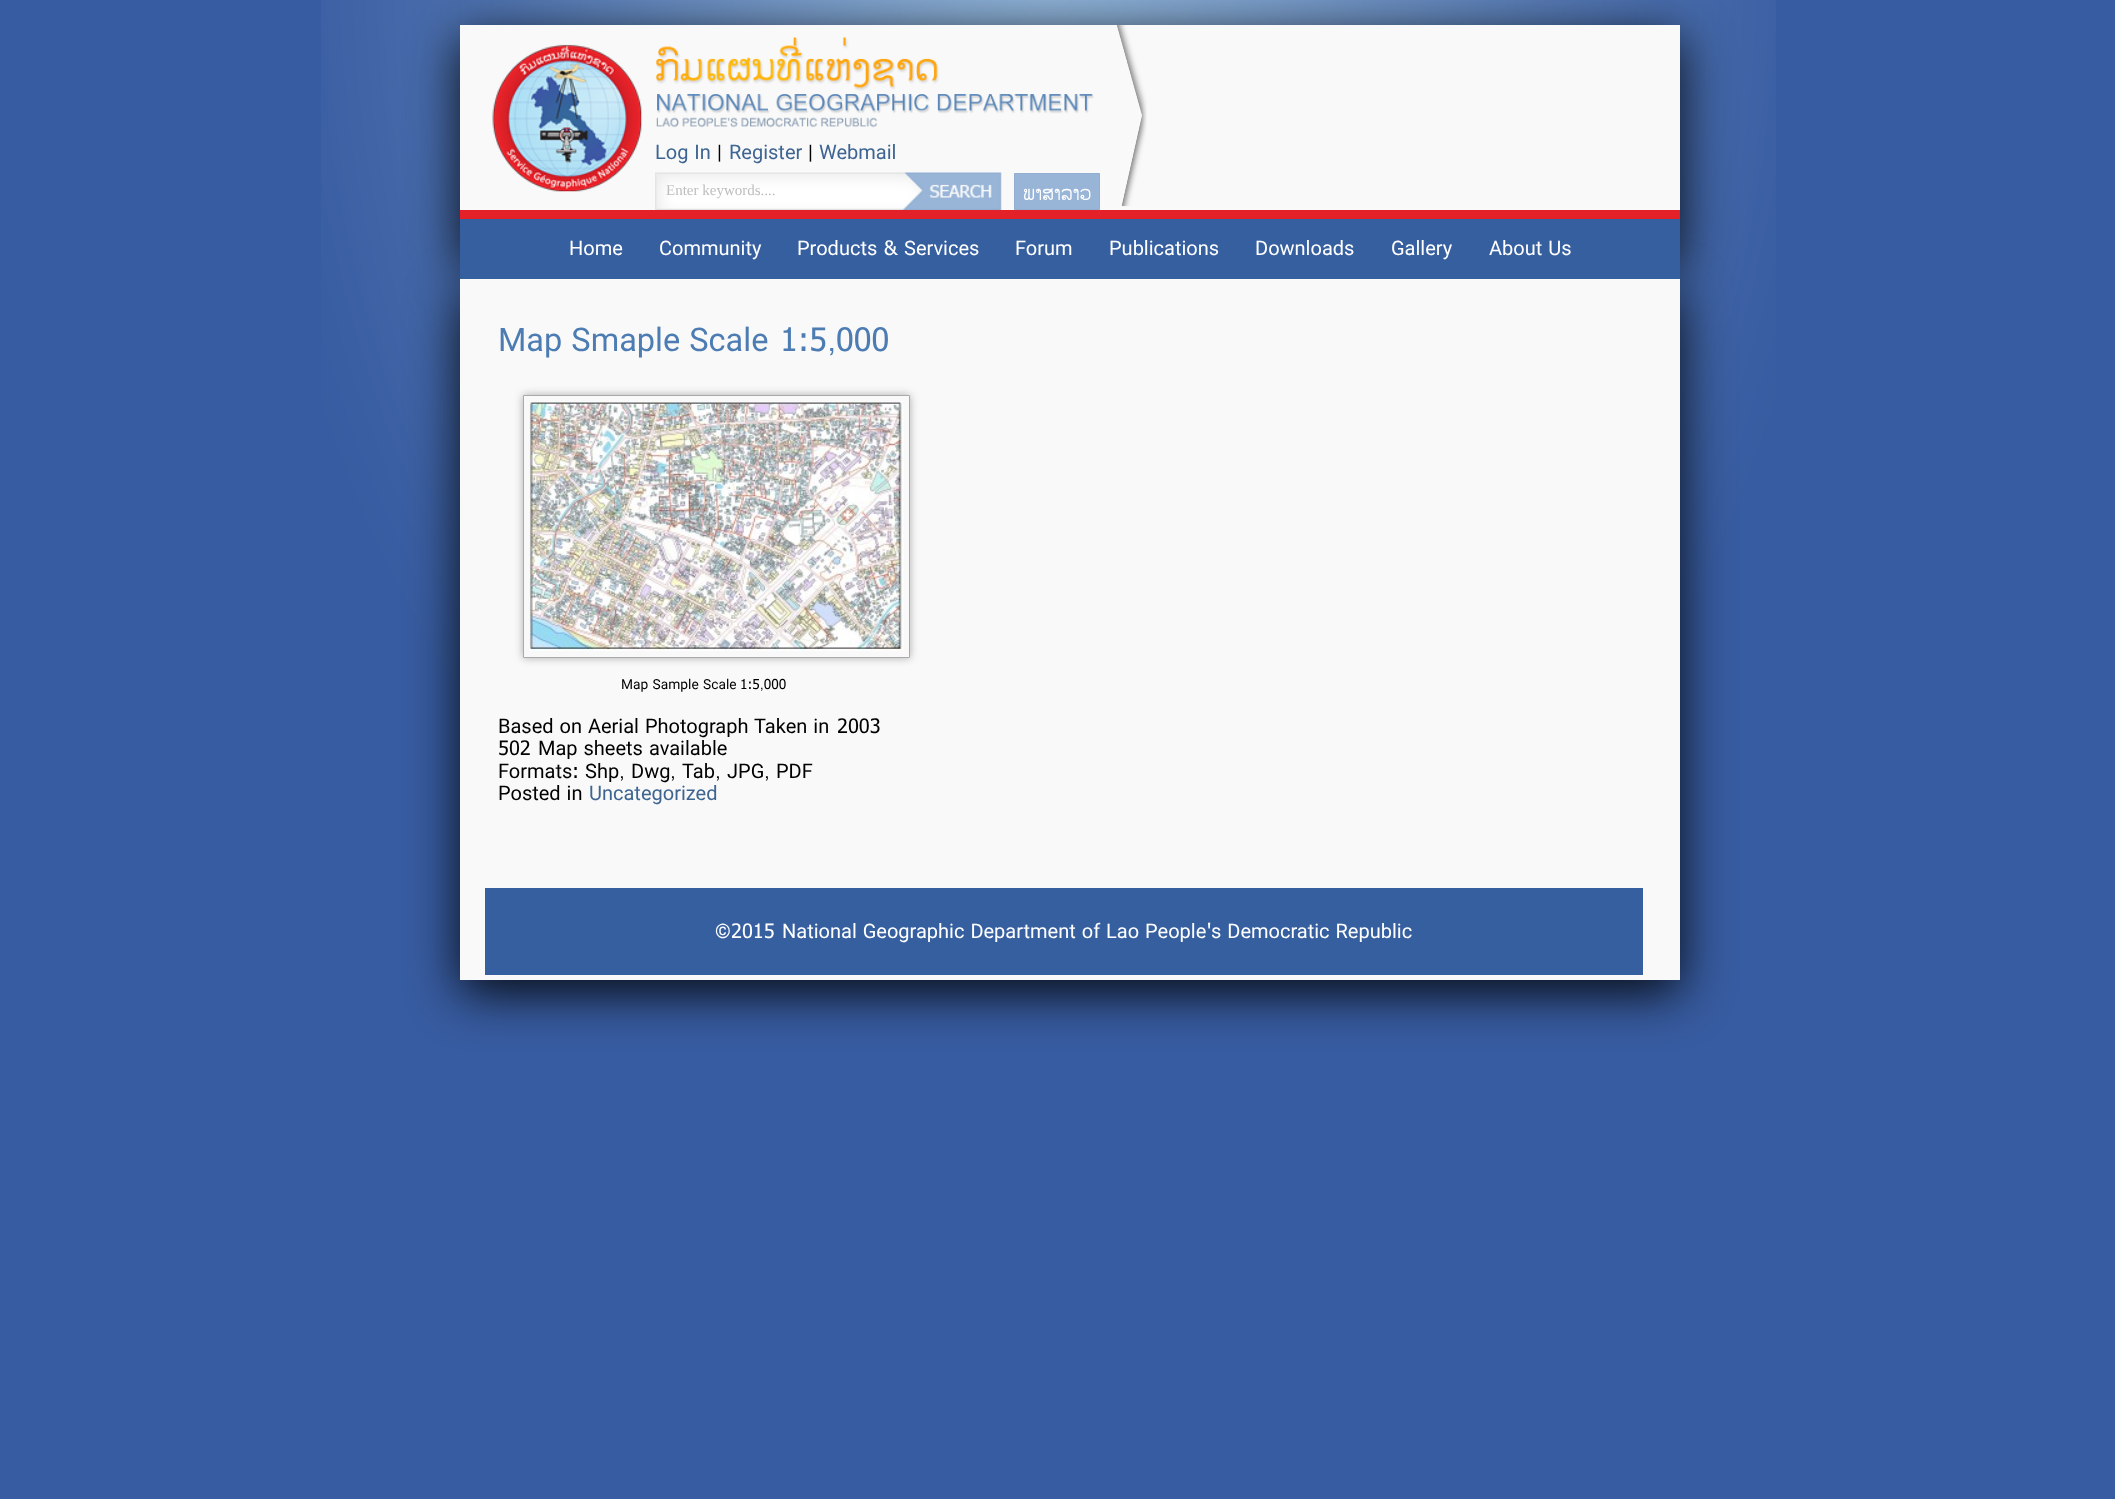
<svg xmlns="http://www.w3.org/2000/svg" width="2115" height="1499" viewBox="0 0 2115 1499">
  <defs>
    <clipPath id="clip1"><path d="M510 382H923V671H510ZM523 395H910V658H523Z" clip-rule="evenodd"/></clipPath>
  </defs>
  <rect width="100%" height="100%" fill="#385ca1"/>
  <image x="321" y="0" width="1455" height="951" href="img/1.png"/>
  <path d="M460 38h1220v231H460z" fill="#000000e6" filter="blur(25px)"/>
  <path d="M460 25h1220v185H460z" fill="#f9f9f9"/>
  <image x="656" y="37" width="438" height="91" href="img/2.png"/>
  <image x="492" y="44" width="150" height="148" href="img/3.png"/>
  <image x="655" y="172" width="347" height="38" href="img/4.png"/>
  <path d="M1014.5 173.5h85v36H1014.5z" fill="#98b4d6" stroke="#92aed0"/>
  <image x="1117" y="25" width="30" height="182" href="img/5.png"/>
  <path d="M460 210h1220v9H460z" fill="#e42028"/>
  <path d="M460 293h1220v700H460z" fill="#000000e6" filter="blur(25px)"/>
  <path d="M460 219h1220v60H460z" fill="#365fa0"/>
  <path d="M460 279h1220v701H460z" fill="#f9f9f9"/>
  <g clip-path="url(#clip1)">
    <path d="M523 395h387v263H523z" fill="#0000004d" filter="blur(4px)"/>
  </g>
  <path d="M523.5 395.5h386v262H523.5z" fill="none" stroke="#aaa"/>
  <image x="529" y="401" width="375" height="250" href="img/6.png"/>
  <path d="M485 888h1158v87H485z" fill="#365fa0"/>
  <text x="655" y="159" word-spacing="1" font-family="Roboto" font-size="20" fill="#3e6592">Log In</text>
  <text x="717" y="159" font-family="Roboto" font-size="20" fill="#000">|</text>
  <text x="729" y="159" font-family="Roboto" font-size="20" fill="#3e6592">Register</text>
  <text x="808" y="159" font-family="Roboto" font-size="20" fill="#000">|</text>
  <text x="819" y="159" font-family="Roboto" font-size="20" fill="#3e6592">Webmail</text>
  <text x="666" y="195" font-family="Liberation Serif" font-size="15" fill="#bebebe">Enter keywords....</text>
  <text x="1023" y="200" font-family="Phetsarath" font-size="20" fill="#fff">ພາສາລາວ</text>
  <g font-family="Roboto" font-size="20" fill="#fff">
    <text x="569" y="255">Home</text>
    <text x="659" y="255">Community</text>
    <text x="797" y="255">Products</text>
  </g>
  <text x="884" y="255" font-family="Phetsarath" font-size="20" fill="#fff">&amp;</text>
  <g font-family="Roboto" font-size="20" fill="#fff">
    <text x="904" y="255">Services</text>
    <text x="1015" y="255">Forum</text>
    <text x="1109" y="255">Publications</text>
    <text x="1255" y="255">Downloads</text>
    <text x="1391" y="255">Gallery</text>
    <text x="1489" y="255" word-spacing="1">About Us</text>
  </g>
  <text x="498" y="351" word-spacing="1" font-family="Roboto" font-size="32.5" fill="#4d7cb3">Map Smaple Scale</text>
  <text x="780" y="351" font-family="Phetsarath" font-size="32.5" fill="#4d7cb3">1:5,000</text>
  <text x="621" y="689" word-spacing="1" font-family="Roboto" font-size="13.75" fill="#000">Map Sample Scale</text>
  <text x="740" y="689" font-family="Phetsarath" font-size="13.75" fill="#000">1:5,000</text>
  <text x="498" y="733" word-spacing="1" font-family="Roboto" font-size="20" fill="#000">Based on Aerial Photograph Taken in</text>
  <g font-family="Phetsarath" font-size="20" fill="#000">
    <text x="837" y="733">2003</text>
    <text x="498" y="755">502</text>
  </g>
  <g font-family="Roboto" font-size="20" fill="#000">
    <text x="538" y="755" word-spacing="1">Map sheets available</text>
    <text x="498" y="778">Formats</text>
  </g>
  <text x="572" y="778" font-family="Phetsarath" font-size="20" fill="#000">:</text>
  <g font-family="Roboto" font-size="20" fill="#000">
    <text x="585" y="778">Shp</text>
    <text x="631" y="778">Dwg</text>
    <text x="682" y="778">Tab</text>
    <text x="727" y="778">JPG</text>
    <text x="776" y="778">PDF</text>
  </g>
  <g font-family="Phetsarath" font-size="20" fill="#000">
    <text x="619" y="778">,</text>
    <text x="670" y="778">,</text>
    <text x="715" y="778">,</text>
    <text x="764" y="778">,</text>
  </g>
  <text x="498" y="800" word-spacing="1" font-family="Roboto" font-size="20" fill="#000">Posted in</text>
  <text x="589" y="800" font-family="Roboto" font-size="20" fill="#3e6592">Uncategorized</text>
  <text x="715" y="938" font-family="Roboto" font-size="20" fill="#fff">©</text>
  <text x="731" y="938" font-family="Phetsarath" font-size="20" fill="#fff">2015</text>
  <text x="782" y="938" word-spacing="1" font-family="Roboto" font-size="20" fill="#fff">National Geographic Department of Lao People</text>
  <text x="1207" y="938" font-family="Phetsarath" font-size="20" fill="#fff">'</text>
  <text x="1211" y="938" word-spacing="1" font-family="Roboto" font-size="20" fill="#fff">s Democratic Republic</text>
</svg>
